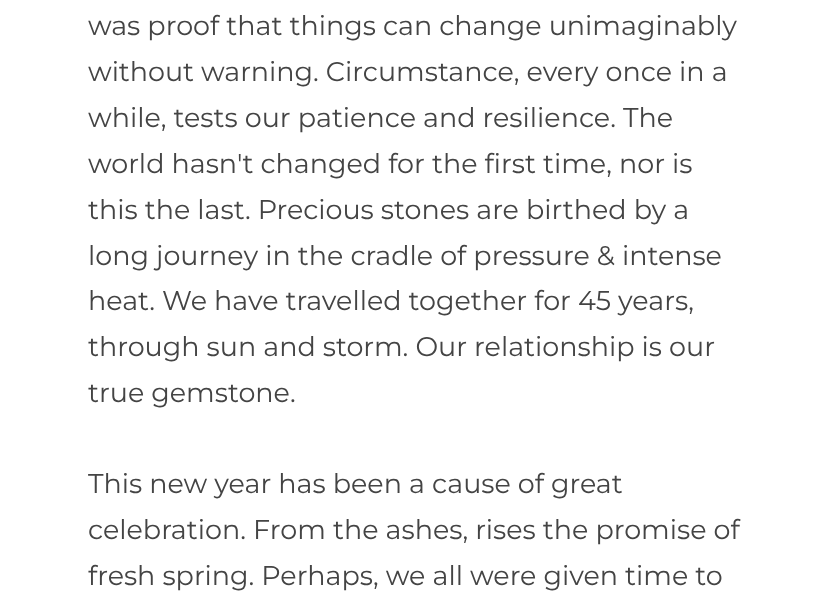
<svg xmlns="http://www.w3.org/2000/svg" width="835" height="608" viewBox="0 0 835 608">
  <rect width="100%" height="100%" fill="#fff"/>
  <g font-family="Montserrat" font-size="27" fill="#444">
    <text x="88" y="35">was proof that things can change unimaginably</text>
    <text x="88" y="81">without warning. Circumstance, every once in a</text>
    <text x="88" y="127">while, tests our patience and resilience. The</text>
    <text x="88" y="173">world hasn't changed for the first time, nor is</text>
    <text x="88" y="219">this the last. Precious stones are birthed by a</text>
    <text x="88" y="265">long journey in the cradle of pressure &amp; intense</text>
    <text x="88" y="310">heat. We have travelled together for 45 years,</text>
    <text x="88" y="356">through sun and storm. Our relationship is our</text>
    <text x="88" y="402">true gemstone.</text>
    <text x="88" y="493">This new year has been a cause of great</text>
    <text x="88" y="539">celebration. From the ashes, rises the promise of</text>
    <text x="88" y="585">fresh spring. Perhaps, we all were given time to</text>
  </g>
</svg>
